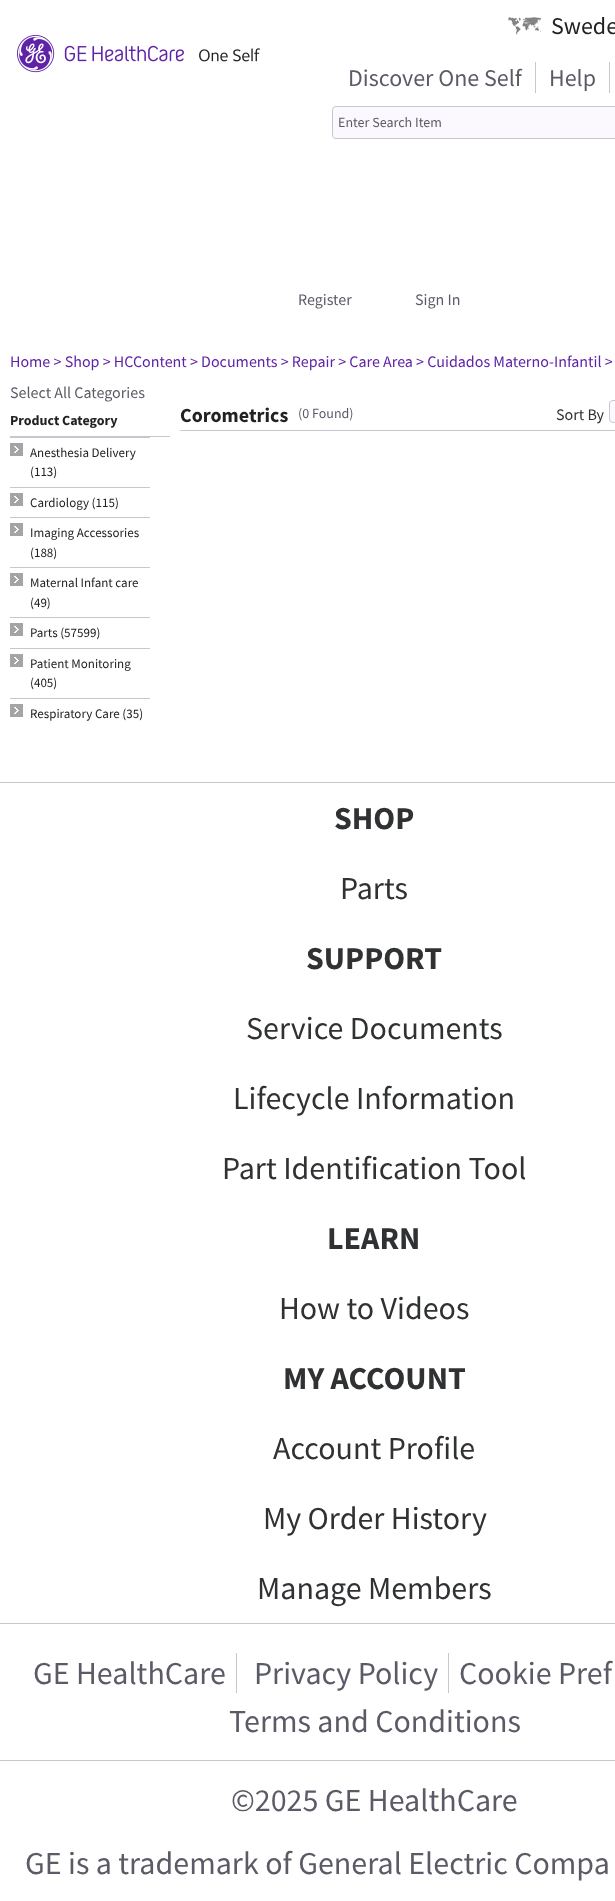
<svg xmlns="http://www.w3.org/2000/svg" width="615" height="1901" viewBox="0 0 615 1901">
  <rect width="100%" height="100%" fill="#fff"/>
  <image x="508" y="17" width="33" height="18" href="img/1.png"/>
  <image x="17" y="35" width="243" height="38" href="img/2.png"/>
  <path d="M535 62h1v31H535z" fill="#c7c8cf"/>
  <path d="M609 62h1v31H609z" fill="#c7c8cf"/>
  <path d="M336 106H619V139H336C334 139 332 137 332 135V110C332 108 334 106 336 106Z" fill="#fbf9fd"/>
  <path d="M336 106H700V139H336C334 139 332 137 332 135V110C332 108 334 106 336 106ZM336 107H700V138H336C334 138 333 137 333 135V110C333 108 334 107 336 107Z" fill="#c7c8cf" fill-rule="evenodd"/>
  <path d="M10 436h160v1H10z" fill="#c7c8cf"/>
  <image x="10" y="443" width="13" height="13" href="img/3.png"/>
  <path d="M10 437h140v1H10z" fill="#c7c8cf"/>
  <image x="10" y="493" width="13" height="13" href="img/3.png"/>
  <path d="M10 487h140v1H10z" fill="#c7c8cf"/>
  <image x="10" y="523" width="13" height="13" href="img/3.png"/>
  <path d="M10 517h140v1H10z" fill="#c7c8cf"/>
  <image x="10" y="573" width="13" height="13" href="img/3.png"/>
  <path d="M10 567h140v1H10z" fill="#c7c8cf"/>
  <image x="10" y="623" width="13" height="13" href="img/3.png"/>
  <path d="M10 617h140v1H10z" fill="#c7c8cf"/>
  <image x="10" y="654" width="13" height="13" href="img/3.png"/>
  <path d="M10 648h140v1H10z" fill="#c7c8cf"/>
  <image x="10" y="704" width="13" height="13" href="img/3.png"/>
  <path d="M10 698h140v1H10z" fill="#c7c8cf"/>
  <path d="M180 430h435v1H180z" fill="#c7c8cf"/>
  <rect x="609.5" y="400.5" width="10" height="22" rx="3.5" fill="#fbf9fd" stroke="#c7c8cf"/>
  <path d="M0 782h615v1H0z" fill="#c7c8cf"/>
  <path d="M0 1623h615v1H0z" fill="#c7c8cf"/>
  <path d="M0 1760h615v1H0z" fill="#c7c8cf"/>
  <path d="M236 1653h1v40H236z" fill="#c7c8cf"/>
  <path d="M448 1653h1v40H448z" fill="#c7c8cf"/>
  <text x="551" y="34" font-family="Source Sans Pro" font-size="24" fill="#222">Swede</text>
  <g font-family="Source Sans Pro" font-size="24" fill="#5b5b67">
    <text x="348" y="86">Discover One Self</text>
    <text x="549" y="86">Help</text>
  </g>
  <text x="338" y="127" font-family="Source Sans Pro" font-size="14" fill="#5b5b67">Enter Search Item</text>
  <g font-family="Source Sans Pro" font-size="16" fill="#5b5b67">
    <text x="298" y="305">Register</text>
    <text x="415" y="305">Sign In</text>
  </g>
  <text x="10" y="367" font-family="Source Sans Pro" font-size="16" fill="#6022a6">Home &gt; Shop &gt; HCContent &gt; Documents &gt; Repair &gt; Care Area &gt; Cuidados Materno-Infantil &gt;</text>
  <text x="10" y="398" font-family="Source Sans Pro" font-size="16" fill="#5b5b67">Select All Categories</text>
  <text x="10" y="425" font-family="Source Sans Pro" font-size="14" font-weight="bold" fill="#222">Product Category</text>
  <g font-family="Source Sans Pro" font-size="13" fill="#222">
    <text x="30" y="457">Anesthesia Delivery</text>
    <text x="30" y="476">(113)</text>
    <text x="30" y="507">Cardiology (115)</text>
    <text x="30" y="537">Imaging Accessories</text>
    <text x="30" y="557">(188)</text>
    <text x="30" y="587">Maternal Infant care</text>
    <text x="30" y="607">(49)</text>
    <text x="30" y="637">Parts (57599)</text>
    <text x="30" y="668">Patient Monitoring</text>
    <text x="30" y="687">(405)</text>
    <text x="30" y="718">Respiratory Care (35)</text>
  </g>
  <text x="180" y="422" font-family="Source Sans Pro" font-size="20" font-weight="bold" fill="#222">Corometrics</text>
  <text x="298" y="418" font-family="Source Sans Pro" font-size="14" fill="#5b5b67">(0 Found)</text>
  <text x="556" y="420" font-family="Source Sans Pro" font-size="16" fill="#2f3133">Sort By</text>
  <text x="334" y="829" font-family="Source Sans Pro" font-size="32" font-weight="bold" fill="#2f3133">SHOP</text>
  <text x="340" y="899" font-family="Source Sans Pro" font-size="32" fill="#2f3133">Parts</text>
  <text x="306" y="969" font-family="Source Sans Pro" font-size="32" font-weight="bold" fill="#2f3133">SUPPORT</text>
  <g font-family="Source Sans Pro" font-size="32" fill="#2f3133">
    <text x="246" y="1039">Service Documents</text>
    <text x="233" y="1109">Lifecycle Information</text>
    <text x="222" y="1179">Part Identification Tool</text>
  </g>
  <text x="327" y="1249" font-family="Source Sans Pro" font-size="32" font-weight="bold" fill="#2f3133">LEARN</text>
  <text x="279" y="1319" font-family="Source Sans Pro" font-size="32" fill="#2f3133">How to Videos</text>
  <text x="283" y="1389" font-family="Source Sans Pro" font-size="32" font-weight="bold" fill="#2f3133">MY ACCOUNT</text>
  <g font-family="Source Sans Pro" font-size="32" fill="#2f3133">
    <text x="273" y="1459">Account Profile</text>
    <text x="263" y="1529">My Order History</text>
    <text x="257" y="1599">Manage Members</text>
  </g>
  <g font-family="Source Sans Pro" font-size="32" fill="#5b5b67">
    <text x="33" y="1684">GE HealthCare</text>
    <text x="254" y="1684">Privacy Policy</text>
    <text x="459" y="1684">Cookie Pref</text>
    <text x="229" y="1732">Terms and Conditions</text>
    <text x="231" y="1811">©2025 GE HealthCare</text>
    <text x="25" y="1874">GE is a trademark of General Electric Compa</text>
  </g>
</svg>
